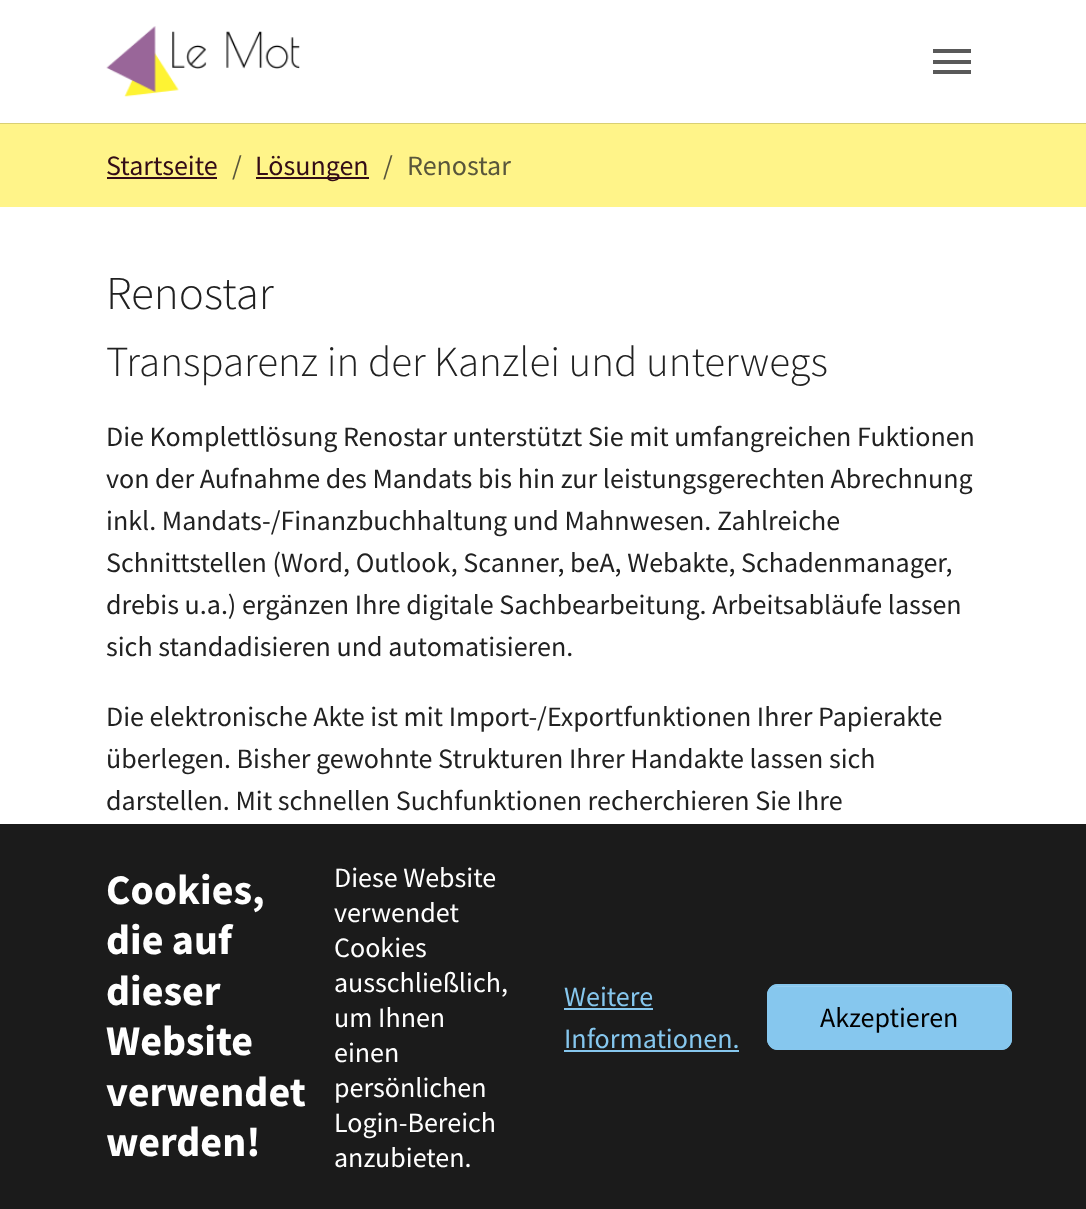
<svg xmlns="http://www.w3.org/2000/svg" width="1086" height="1209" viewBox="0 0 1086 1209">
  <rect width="100%" height="100%" fill="#fff"/>
  <path d="M0 123h1086v84H0z" fill="#fff489"/>
  <path d="M0 122V124H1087V2V122Z" fill="#00000026"/>
  <path d="M0 122h1086v1H0z" fill="#fff"/>
  <image x="106" y="26" width="194" height="71" href="img/1.png"/>
  <path d="M933 60h38v4H933z" fill="#595959"/>
  <path d="M933 49h38v4H933z" fill="#595959"/>
  <path d="M933 70h38v4H933z" fill="#595959"/>
  <path d="M107 177h110v2H107z" fill="#330c17"/>
  <path d="M256 177h113v2H256z" fill="#330c17"/>
  <path d="M0 824h1086v385H0z" fill="#1b1b1b"/>
  <path d="M564 1008h89v2H564z" fill="#86c7ee"/>
  <path d="M564 1050h175v2H564z" fill="#86c7ee"/>
  <rect x="767" y="984" width="245" height="66" rx="11" fill="#86c7ee"/>
  <path d="M777 987H1001C1006 987 1010 991 1010 996V994C1010 989 1006 985 1001 985H777C772 985 768 989 768 994V996C768 991 772 987 777 987Z" fill="#98cff1"/>
  <rect x="768" y="985" width="243" height="64" rx="10" fill="none" stroke="#86c7ee" stroke-width="2"/>
  <text x="106" y="175" font-family="Source Sans Pro" font-size="28" fill="#330c17">Startseite</text>
  <text x="232" y="175" font-family="Source Sans Pro" font-size="28" fill="#59563b">/</text>
  <text x="255" y="175" font-family="Source Sans Pro" font-size="28" fill="#330c17">Lösungen</text>
  <g font-family="Source Sans Pro" font-size="28" fill="#59563b">
    <text x="383" y="175">/</text>
    <text x="407" y="175">Renostar</text>
  </g>
  <text x="106" y="309" font-family="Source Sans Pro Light" font-size="47" font-weight="300" fill="#212121">Renostar</text>
  <text x="106" y="376" font-family="Source Sans Pro Light" font-size="42.9" font-weight="300" fill="#212121">Transparenz in der Kanzlei und unterwegs</text>
  <g font-family="Source Sans Pro" font-size="28" fill="#212121">
    <text x="106" y="446">Die Komplettlösung Renostar unterstützt Sie mit umfangreichen Fuktionen</text>
    <text x="106" y="488">von der Aufnahme des Mandats bis hin zur leistungsgerechten Abrechnung</text>
    <text x="106" y="530">inkl. Mandats-/Finanzbuchhaltung und Mahnwesen. Zahlreiche</text>
    <text x="106" y="572">Schnittstellen (Word, Outlook, Scanner, beA, Webakte, Schadenmanager,</text>
    <text x="106" y="614">drebis u.a.) ergänzen Ihre digitale Sachbearbeitung. Arbeitsabläufe lassen</text>
    <text x="106" y="656">sich standadisieren und automatisieren.</text>
    <text x="106" y="726">Die elektronische Akte ist mit Import-/Exportfunktionen Ihrer Papierakte</text>
    <text x="106" y="768">überlegen. Bisher gewohnte Strukturen Ihrer Handakte lassen sich</text>
    <text x="106" y="810">darstellen. Mit schnellen Suchfunktionen recherchieren Sie Ihre</text>
  </g>
  <g font-family="Source Sans Pro" font-size="42" font-weight="bold" fill="#fff">
    <text x="106" y="904">Cookies,</text>
    <text x="106" y="954">die auf</text>
    <text x="106" y="1005">dieser</text>
    <text x="106" y="1055">Website</text>
    <text x="106" y="1106">verwendet</text>
    <text x="106" y="1156">werden!</text>
  </g>
  <g font-family="Source Sans Pro" font-size="28" fill="#fff">
    <text x="334" y="887">Diese Website</text>
    <text x="334" y="922">verwendet</text>
    <text x="334" y="957">Cookies</text>
    <text x="334" y="992">ausschließlich,</text>
    <text x="334" y="1027">um Ihnen</text>
    <text x="334" y="1062">einen</text>
    <text x="334" y="1097">persönlichen</text>
    <text x="334" y="1132">Login-Bereich</text>
    <text x="334" y="1167">anzubieten.</text>
  </g>
  <g font-family="Source Sans Pro" font-size="28" fill="#86c7ee">
    <text x="564" y="1006">Weitere</text>
    <text x="564" y="1048">Informationen.</text>
  </g>
  <text x="820" y="1027" font-family="Source Sans Pro" font-size="28" fill="#000">Akzeptieren</text>
</svg>
